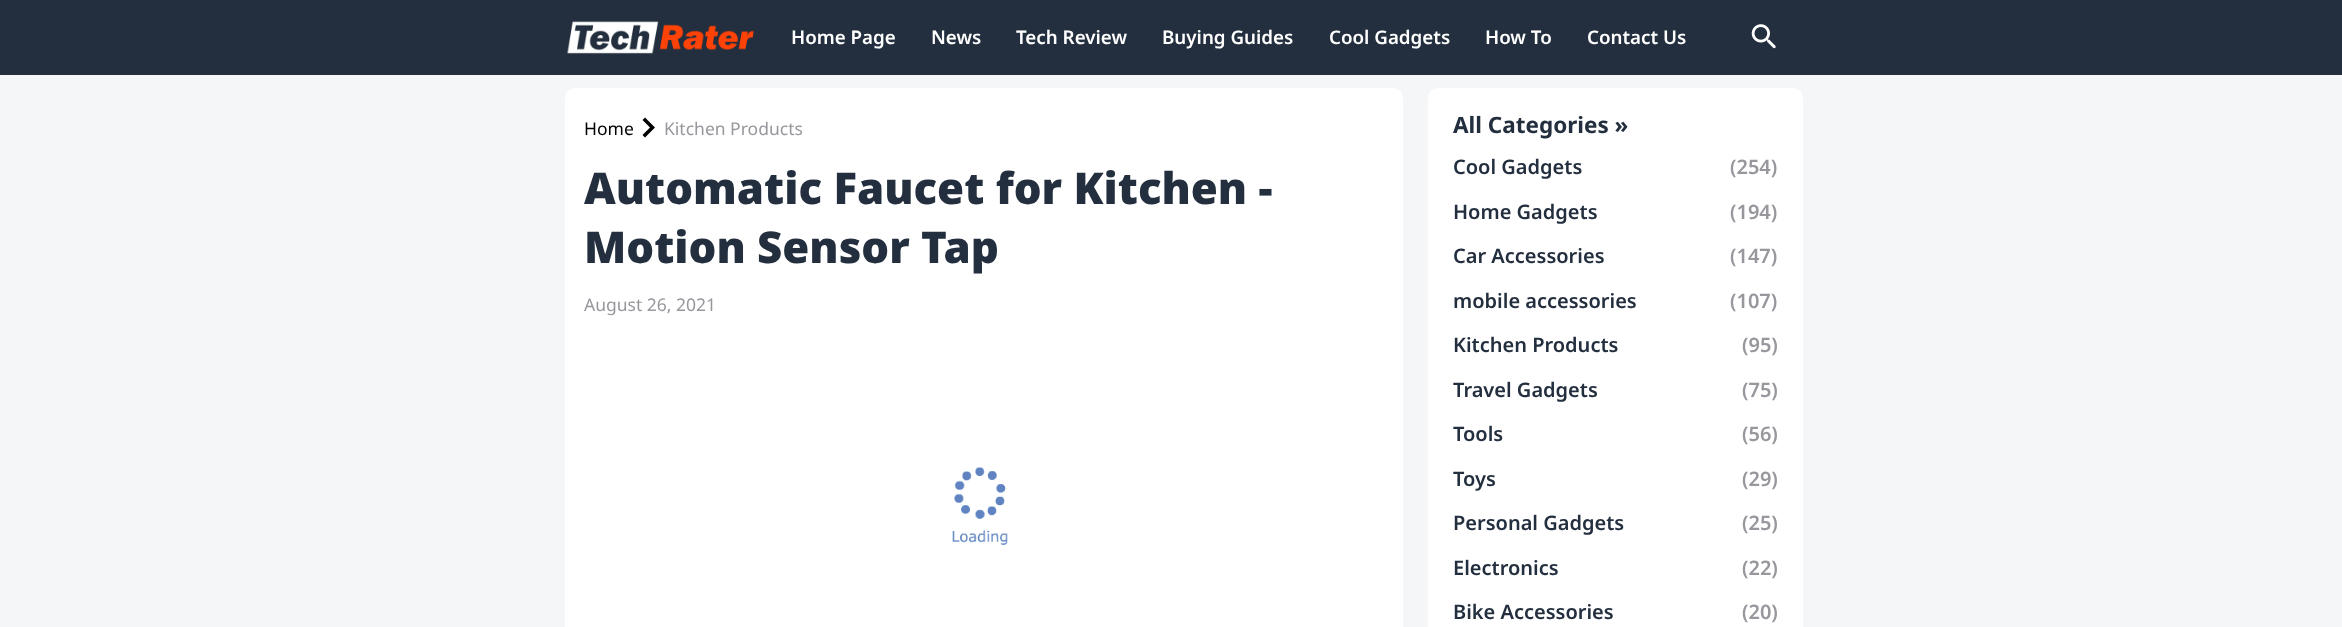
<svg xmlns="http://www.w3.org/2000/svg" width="2342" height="627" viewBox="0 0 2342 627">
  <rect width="100%" height="100%" fill="#f5f6f7"/>
  <path d="M0 0h2342v75H0z" fill="#232f3e"/>
  <image x="567" y="21" width="187" height="33" href="img/1.png"/>
  <image x="1751" y="24" width="25" height="25" href="img/2.png"/>
  <rect x="565" y="88" width="838" height="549" rx="10" fill="#fff"/>
  <path d="M645 117.5L655 127.5L645 137.5L642.5 135L650 127.5L642.5 120Z" fill="#000" fill-rule="evenodd"/>
  <image x="952" y="467" width="56" height="78" href="img/3.png"/>
  <rect x="1428" y="88" width="375" height="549" rx="10" fill="#fff"/>
  <g font-family="Noto Sans" font-size="18.75" font-weight="600" fill="#fff">
    <text x="791" y="44">Home Page</text>
    <text x="931" y="44">News</text>
    <text x="1016" y="44">Tech Review</text>
    <text x="1162" y="44">Buying Guides</text>
    <text x="1329" y="44">Cool Gadgets</text>
    <text x="1485" y="44">How To</text>
    <text x="1587" y="44">Contact Us</text>
  </g>
  <text x="584" y="135" font-family="Noto Sans" font-size="17.5" fill="#000">Home</text>
  <text x="664" y="135" font-family="Noto Sans" font-size="17.5" fill="#97979d">Kitchen Products</text>
  <g font-family="Noto Sans" font-size="43.75" font-weight="900" fill="#232f3e">
    <text x="584" y="204">Automatic Faucet for Kitchen -</text>
    <text x="584" y="263">Motion Sensor Tap</text>
  </g>
  <text x="584" y="311" font-family="Noto Sans" font-size="17.5" fill="#97979d">August 26, 2021</text>
  <text x="1453" y="133" font-family="Noto Sans" font-size="22.5" font-weight="bold" fill="#232f3e">All Categories »</text>
  <text x="1453" y="174" font-family="Noto Sans" font-size="20" font-weight="600" fill="#232f3e">Cool Gadgets</text>
  <text x="1730" y="174" font-family="Noto Sans" font-size="20" font-weight="600" fill="#97979d">(254)</text>
  <text x="1453" y="219" font-family="Noto Sans" font-size="20" font-weight="600" fill="#232f3e">Home Gadgets</text>
  <text x="1730" y="219" font-family="Noto Sans" font-size="20" font-weight="600" fill="#97979d">(194)</text>
  <text x="1453" y="263" font-family="Noto Sans" font-size="20" font-weight="600" fill="#232f3e">Car Accessories</text>
  <text x="1730" y="263" font-family="Noto Sans" font-size="20" font-weight="600" fill="#97979d">(147)</text>
  <text x="1453" y="308" font-family="Noto Sans" font-size="20" font-weight="600" fill="#232f3e">mobile accessories</text>
  <text x="1730" y="308" font-family="Noto Sans" font-size="20" font-weight="600" fill="#97979d">(107)</text>
  <text x="1453" y="352" font-family="Noto Sans" font-size="20" font-weight="600" fill="#232f3e">Kitchen Products</text>
  <text x="1742" y="352" font-family="Noto Sans" font-size="20" font-weight="600" fill="#97979d">(95)</text>
  <text x="1453" y="397" font-family="Noto Sans" font-size="20" font-weight="600" fill="#232f3e">Travel Gadgets</text>
  <text x="1742" y="397" font-family="Noto Sans" font-size="20" font-weight="600" fill="#97979d">(75)</text>
  <text x="1453" y="441" font-family="Noto Sans" font-size="20" font-weight="600" fill="#232f3e">Tools</text>
  <text x="1742" y="441" font-family="Noto Sans" font-size="20" font-weight="600" fill="#97979d">(56)</text>
  <text x="1453" y="486" font-family="Noto Sans" font-size="20" font-weight="600" fill="#232f3e">Toys</text>
  <text x="1742" y="486" font-family="Noto Sans" font-size="20" font-weight="600" fill="#97979d">(29)</text>
  <text x="1453" y="530" font-family="Noto Sans" font-size="20" font-weight="600" fill="#232f3e">Personal Gadgets</text>
  <text x="1742" y="530" font-family="Noto Sans" font-size="20" font-weight="600" fill="#97979d">(25)</text>
  <text x="1453" y="575" font-family="Noto Sans" font-size="20" font-weight="600" fill="#232f3e">Electronics</text>
  <text x="1742" y="575" font-family="Noto Sans" font-size="20" font-weight="600" fill="#97979d">(22)</text>
  <text x="1453" y="619" font-family="Noto Sans" font-size="20" font-weight="600" fill="#232f3e">Bike Accessories</text>
  <text x="1742" y="619" font-family="Noto Sans" font-size="20" font-weight="600" fill="#97979d">(20)</text>
</svg>
